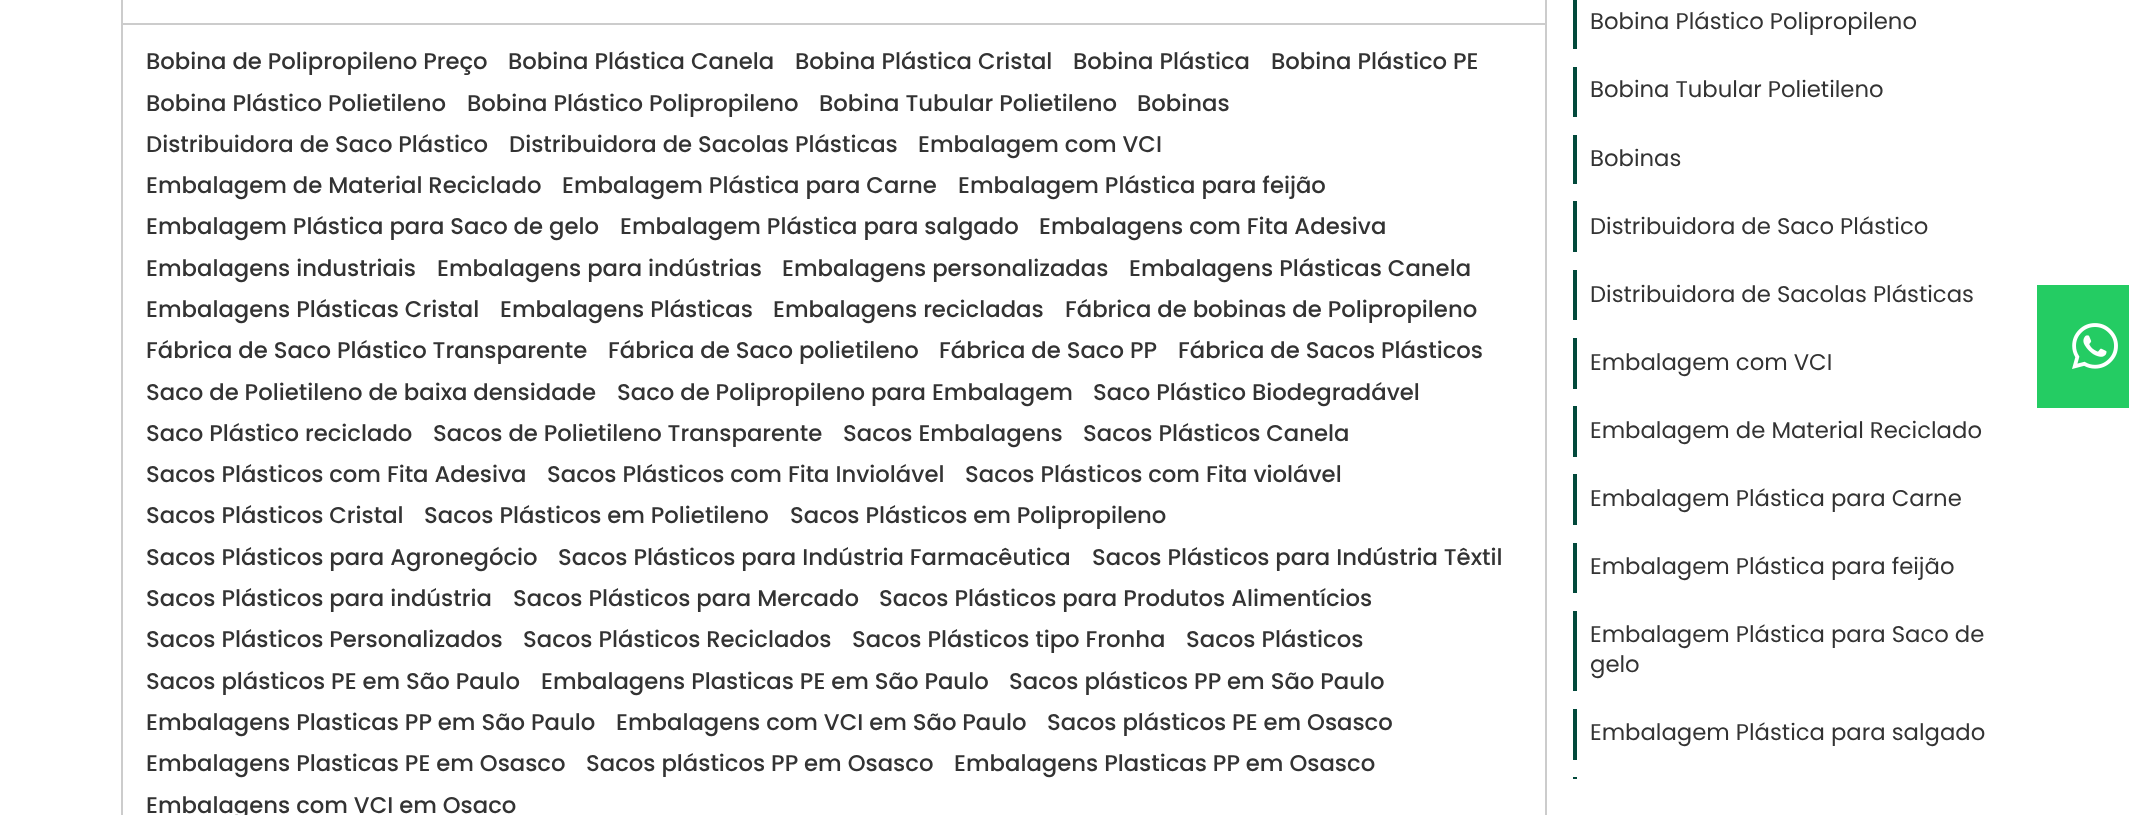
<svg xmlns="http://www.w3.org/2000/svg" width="2129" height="815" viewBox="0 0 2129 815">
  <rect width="100%" height="100%" fill="#fff"/>
  <path d="M122 -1h1424v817H122z" fill="none" stroke="#ccc" stroke-width="2"/>
  <path d="M123 23h1422v2H123z" fill="#ccc"/>
  <path d="M1573 0h4v49H1573z" fill="#02493b"/>
  <path d="M1573 67h4v50H1573z" fill="#02493b"/>
  <path d="M1573 135h4v49H1573z" fill="#02493b"/>
  <path d="M1573 201h4v51H1573z" fill="#02493b"/>
  <path d="M1573 270h4v50H1573z" fill="#02493b"/>
  <path d="M1573 338h4v51H1573z" fill="#02493b"/>
  <path d="M1573 406h4v51H1573z" fill="#02493b"/>
  <path d="M1573 474h4v51H1573z" fill="#02493b"/>
  <path d="M1573 543h4v50H1573z" fill="#02493b"/>
  <path d="M1573 611h4v80H1573z" fill="#02493b"/>
  <path d="M1573 709h4v51H1573z" fill="#02493b"/>
  <path d="M1573 777h4v2H1573z" fill="#02493b"/>
  <path d="M2037 285h92v123H2037z" fill="#24cc63"/>
  <image x="2072" y="323" width="46" height="46" href="img/1.png"/>
  <g font-family="Poppins" font-size="22.75" font-weight="500" fill="#333">
    <text x="146" y="69">Bobina de Polipropileno Preço</text>
    <text x="508" y="69">Bobina Plástica Canela</text>
    <text x="795" y="69">Bobina Plástica Cristal</text>
    <text x="1073" y="69">Bobina Plástica</text>
    <text x="1271" y="69">Bobina Plástico PE</text>
    <text x="146" y="111">Bobina Plástico Polietileno</text>
    <text x="467" y="111">Bobina Plástico Polipropileno</text>
    <text x="819" y="111">Bobina Tubular Polietileno</text>
    <text x="1137" y="111">Bobinas</text>
    <text x="146" y="152">Distribuidora de Saco Plástico</text>
    <text x="509" y="152">Distribuidora de Sacolas Plásticas</text>
    <text x="918" y="152">Embalagem com VCI</text>
    <text x="146" y="193">Embalagem de Material Reciclado</text>
    <text x="562" y="193">Embalagem Plástica para Carne</text>
    <text x="958" y="193">Embalagem Plástica para feijão</text>
    <text x="146" y="234">Embalagem Plástica para Saco de gelo</text>
    <text x="620" y="234">Embalagem Plástica para salgado</text>
    <text x="1039" y="234">Embalagens com Fita Adesiva</text>
    <text x="146" y="276">Embalagens industriais</text>
    <text x="437" y="276">Embalagens para indústrias</text>
    <text x="782" y="276">Embalagens personalizadas</text>
    <text x="1129" y="276">Embalagens Plásticas Canela</text>
    <text x="146" y="317">Embalagens Plásticas Cristal</text>
    <text x="500" y="317">Embalagens Plásticas</text>
    <text x="773" y="317">Embalagens recicladas</text>
    <text x="1065" y="317">Fábrica de bobinas de Polipropileno</text>
    <text x="146" y="358">Fábrica de Saco Plástico Transparente</text>
    <text x="608" y="358">Fábrica de Saco polietileno</text>
    <text x="939" y="358">Fábrica de Saco PP</text>
    <text x="1178" y="358">Fábrica de Sacos Plásticos</text>
    <text x="146" y="400">Saco de Polietileno de baixa densidade</text>
    <text x="617" y="400">Saco de Polipropileno para Embalagem</text>
    <text x="1093" y="400">Saco Plástico Biodegradável</text>
    <text x="146" y="441">Saco Plástico reciclado</text>
    <text x="433" y="441">Sacos de Polietileno Transparente</text>
    <text x="843" y="441">Sacos Embalagens</text>
    <text x="1083" y="441">Sacos Plásticos Canela</text>
    <text x="146" y="482">Sacos Plásticos com Fita Adesiva</text>
    <text x="547" y="482">Sacos Plásticos com Fita Inviolável</text>
    <text x="965" y="482">Sacos Plásticos com Fita violável</text>
    <text x="146" y="523">Sacos Plásticos Cristal</text>
    <text x="424" y="523">Sacos Plásticos em Polietileno</text>
    <text x="790" y="523">Sacos Plásticos em Polipropileno</text>
    <text x="146" y="565">Sacos Plásticos para Agronegócio</text>
    <text x="558" y="565">Sacos Plásticos para Indústria Farmacêutica</text>
    <text x="1092" y="565">Sacos Plásticos para Indústria Têxtil</text>
    <text x="146" y="606">Sacos Plásticos para indústria</text>
    <text x="513" y="606">Sacos Plásticos para Mercado</text>
    <text x="879" y="606">Sacos Plásticos para Produtos Alimentícios</text>
    <text x="146" y="647">Sacos Plásticos Personalizados</text>
    <text x="523" y="647">Sacos Plásticos Reciclados</text>
    <text x="852" y="647">Sacos Plásticos tipo Fronha</text>
    <text x="1186" y="647">Sacos Plásticos</text>
    <text x="146" y="689">Sacos plásticos PE em São Paulo</text>
    <text x="541" y="689">Embalagens Plasticas PE em São Paulo</text>
    <text x="1009" y="689">Sacos plásticos PP em São Paulo</text>
    <text x="146" y="730">Embalagens Plasticas PP em São Paulo</text>
    <text x="616" y="730">Embalagens com VCI em São Paulo</text>
    <text x="1047" y="730">Sacos plásticos PE em Osasco</text>
    <text x="146" y="771">Embalagens Plasticas PE em Osasco</text>
    <text x="586" y="771">Sacos plásticos PP em Osasco</text>
    <text x="954" y="771">Embalagens Plasticas PP em Osasco</text>
    <text x="146" y="813">Embalagens com VCI em Osaco</text>
  </g>
  <g font-family="Poppins" font-size="22.75" fill="#333">
    <text x="1590" y="29">Bobina Plástico Polipropileno</text>
    <text x="1590" y="97">Bobina Tubular Polietileno</text>
    <text x="1590" y="166">Bobinas</text>
    <text x="1590" y="234">Distribuidora de Saco Plástico</text>
    <text x="1590" y="302">Distribuidora de Sacolas Plásticas</text>
    <text x="1590" y="370">Embalagem com VCI</text>
    <text x="1590" y="438">Embalagem de Material Reciclado</text>
    <text x="1590" y="506">Embalagem Plástica para Carne</text>
    <text x="1590" y="574">Embalagem Plástica para feijão</text>
    <text x="1590" y="642">Embalagem Plástica para Saco de</text>
    <text x="1590" y="672">gelo</text>
    <text x="1590" y="740">Embalagem Plástica para salgado</text>
  </g>
</svg>
